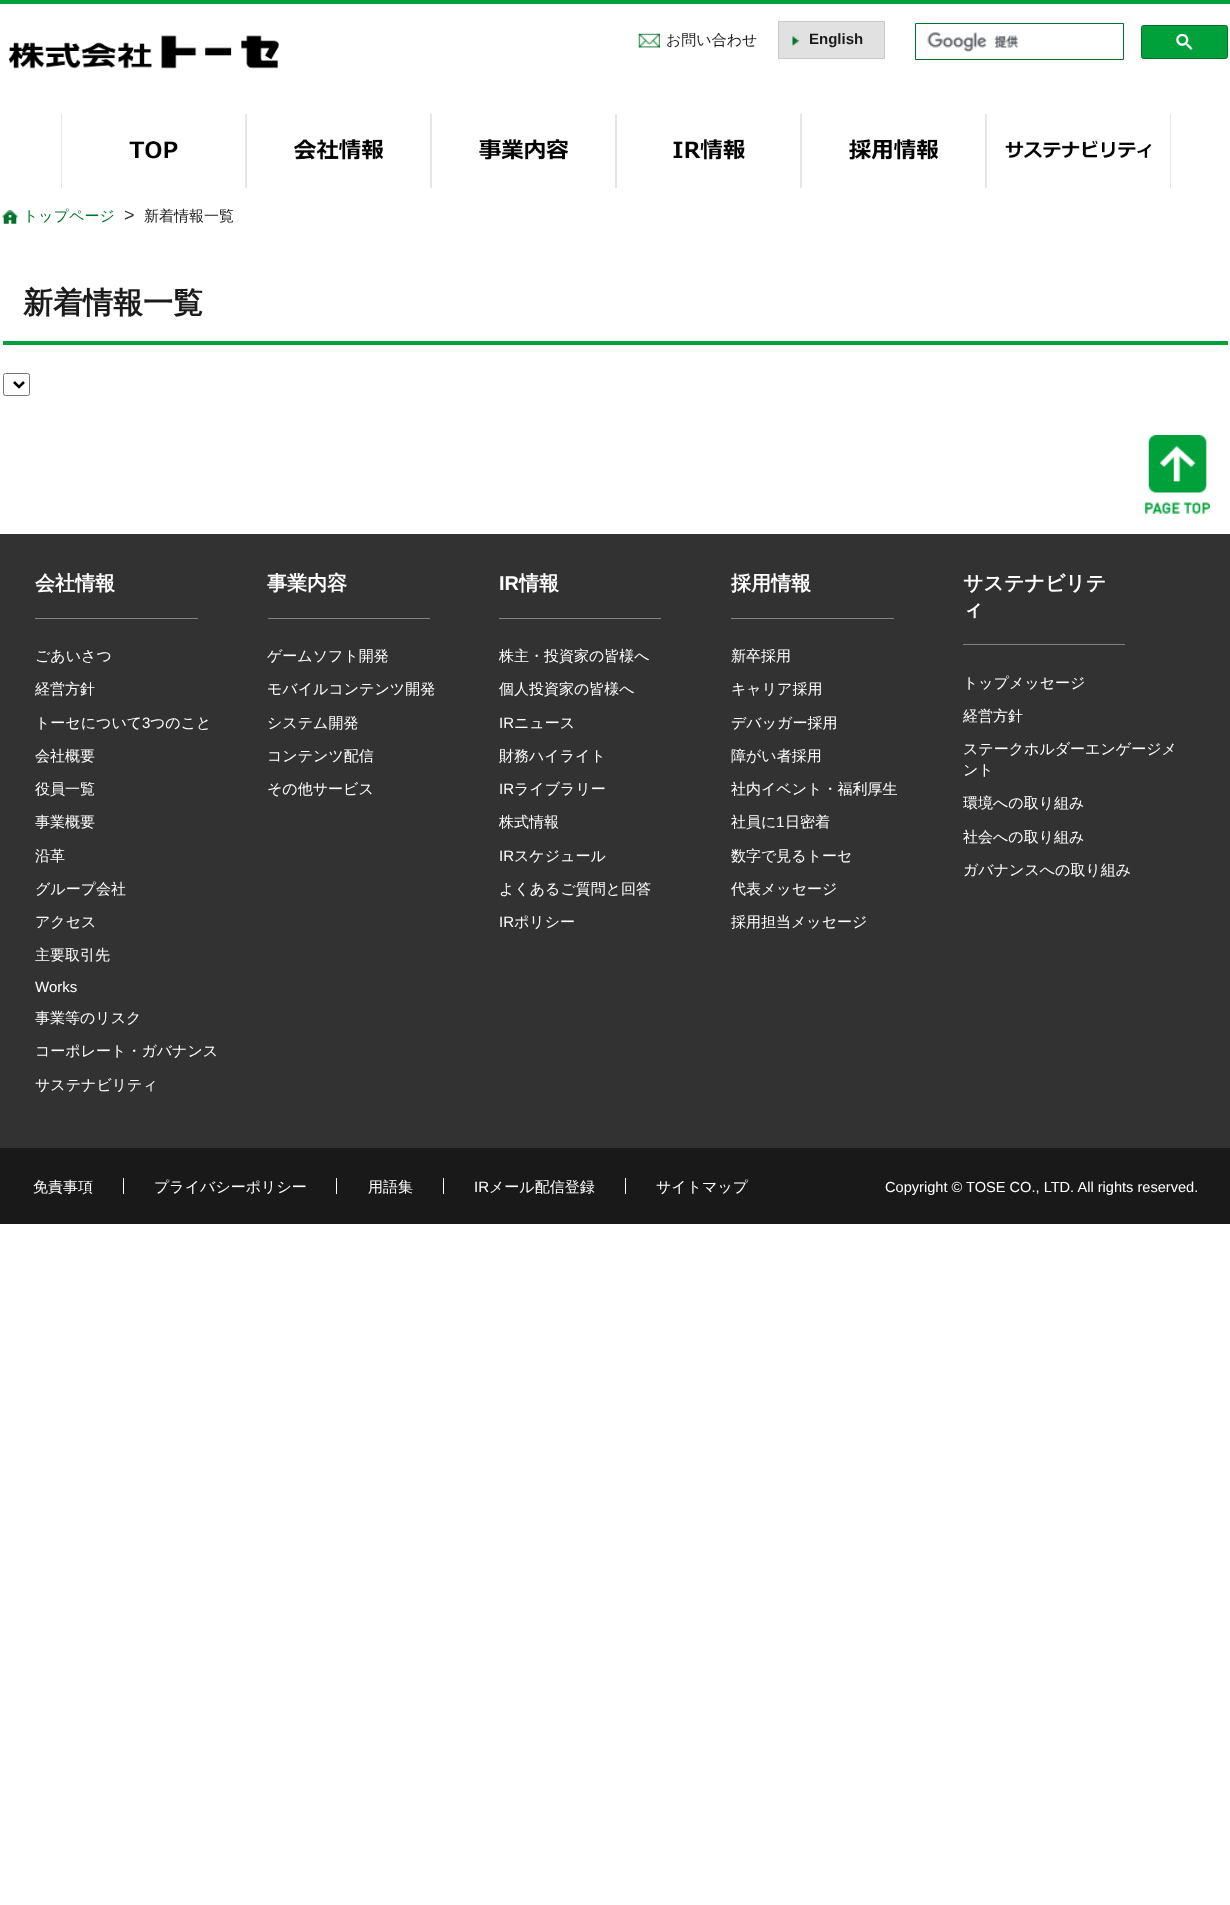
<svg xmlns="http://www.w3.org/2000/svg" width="1230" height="1905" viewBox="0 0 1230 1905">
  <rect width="100%" height="100%" fill="#fff"/>
  <path d="M0 0h1230v4H0z" fill="#00a13a"/>
  <image x="8" y="35" width="271" height="34" href="img/1.png"/>
  <image x="638" y="33" width="22" height="15" href="img/2.png"/>
  <path d="M779 22h105v36H779z" fill="#e1e1e1"/>
  <image x="791" y="36" width="9" height="11" href="img/3.png"/>
  <path d="M778.5 21.5h106v37H778.5z" fill="none" stroke="#c8c8c8"/>
  <path d="M915.5 23.5h208v36H915.5z" fill="none" stroke="#06712b"/>
  <image x="927" y="32" width="92" height="20" href="img/4.png"/>
  <rect x="1141.5" y="25.5" width="86" height="33" rx="2" fill="#00a13a" stroke="#06712b"/>
  <image x="1176" y="34" width="17" height="16" href="img/5.png"/>
  <path d="M245 114h2v74H245z" fill="#e6e6e6"/>
  <path d="M61 114h1v74H61z" fill="#e6e6e6"/>
  <image x="129" y="141" width="49" height="18" href="img/6.png"/>
  <path d="M430 114h2v74H430z" fill="#e6e6e6"/>
  <image x="294" y="139" width="90" height="21" href="img/7.png"/>
  <path d="M615 114h2v74H615z" fill="#e6e6e6"/>
  <image x="479" y="139" width="90" height="21" href="img/8.png"/>
  <path d="M800 114h2v74H800z" fill="#e6e6e6"/>
  <image x="673" y="139" width="72" height="21" href="img/9.png"/>
  <path d="M985 114h2v74H985z" fill="#e6e6e6"/>
  <image x="849" y="139" width="90" height="21" href="img/10.png"/>
  <path d="M1170 114h1v74H1170z" fill="#e6e6e6"/>
  <image x="1005" y="140" width="147" height="18" href="img/11.png"/>
  <image x="2" y="210" width="16" height="14" href="img/12.png"/>
  <path d="M3 341h1225v4H3z" fill="#00a13a"/>
  <rect x="3.5" y="373.5" width="26" height="22" rx="2" fill="none" stroke="#767676"/>
  <path d="M14 382L19 387L24 382" fill="none" stroke="#000" stroke-width="2.5"/>
  <image x="1145" y="435" width="65" height="79" href="img/13.png"/>
  <path d="M0 534h1230v614H0z" fill="#323232"/>
  <path d="M35 618h163v1H35z" fill="#828282"/>
  <path d="M268 618h162v1H268z" fill="#828282"/>
  <path d="M499 618h162v1H499z" fill="#828282"/>
  <path d="M731 618h163v1H731z" fill="#828282"/>
  <path d="M963 644h162v1H963z" fill="#828282"/>
  <path d="M0 1148h1230v76H0z" fill="#191919"/>
  <path d="M123 1178h1v16H123z" fill="#fff"/>
  <path d="M336 1178h1v16H336z" fill="#fff"/>
  <path d="M443 1178h1v16H443z" fill="#fff"/>
  <path d="M625 1178h1v16H625z" fill="#fff"/>
  <text x="666" y="45" font-family="WenQuanYi Zen Hei" font-size="15" font-weight="500" fill="#1b1b1b">お問い合わせ</text>
  <text x="809" y="44" font-family="Liberation Sans" font-size="15" font-weight="bold" fill="#1b1b1b">English</text>
  <text x="23" y="221" font-family="WenQuanYi Zen Hei" font-size="15" font-weight="500" fill="#06712b">トップページ</text>
  <text x="124" y="221" font-family="Liberation Sans" font-size="18" fill="#323232">&gt;</text>
  <text x="144" y="221" font-family="WenQuanYi Zen Hei" font-size="15" font-weight="500" fill="#1b1b1b">新着情報一覧</text>
  <text x="23" y="313" font-family="WenQuanYi Zen Hei" font-size="30" font-weight="bold" fill="#1b1b1b">新着情報一覧</text>
  <text x="35" y="590" font-family="WenQuanYi Zen Hei" font-size="20" font-weight="bold" fill="#fff">会社情報</text>
  <g font-family="WenQuanYi Zen Hei" font-size="15" font-weight="500" fill="#fff">
    <text x="35" y="661">ごあいさつ</text>
    <text x="35" y="694">経営方針</text>
    <text x="35" y="728">トーセについて</text>
  </g>
  <text x="142" y="728" font-family="Liberation Sans" font-size="15" fill="#fff">3</text>
  <g font-family="WenQuanYi Zen Hei" font-size="15" font-weight="500" fill="#fff">
    <text x="150" y="728">つのこと</text>
    <text x="35" y="761">会社概要</text>
    <text x="35" y="794">役員一覧</text>
    <text x="35" y="827">事業概要</text>
    <text x="35" y="861">沿革</text>
    <text x="35" y="894">グループ会社</text>
    <text x="35" y="927">アクセス</text>
    <text x="35" y="960">主要取引先</text>
  </g>
  <text x="35" y="992" font-family="Liberation Sans" font-size="15" fill="#fff">Works</text>
  <g font-family="WenQuanYi Zen Hei" font-size="15" font-weight="500" fill="#fff">
    <text x="35" y="1023">事業等のリスク</text>
    <text x="35" y="1056">コーポレート・ガバナンス</text>
    <text x="35" y="1090">サステナビリティ</text>
  </g>
  <text x="267" y="590" font-family="WenQuanYi Zen Hei" font-size="20" font-weight="bold" fill="#fff">事業内容</text>
  <g font-family="WenQuanYi Zen Hei" font-size="15" font-weight="500" fill="#fff">
    <text x="267" y="661">ゲームソフト開発</text>
    <text x="267" y="694">モバイルコンテンツ開発</text>
    <text x="267" y="728">システム開発</text>
    <text x="267" y="761">コンテンツ配信</text>
    <text x="267" y="794">その他サービス</text>
  </g>
  <text x="499" y="590" font-family="Liberation Sans" font-size="20" font-weight="bold" fill="#fff">IR</text>
  <text x="519" y="590" font-family="WenQuanYi Zen Hei" font-size="20" font-weight="bold" fill="#fff">情報</text>
  <g font-family="WenQuanYi Zen Hei" font-size="15" font-weight="500" fill="#fff">
    <text x="499" y="661">株主・投資家の皆様へ</text>
    <text x="499" y="694">個人投資家の皆様へ</text>
  </g>
  <text x="499" y="728" font-family="Liberation Sans" font-size="15" fill="#fff">IR</text>
  <g font-family="WenQuanYi Zen Hei" font-size="15" font-weight="500" fill="#fff">
    <text x="514" y="728">ニュース</text>
    <text x="499" y="761">財務ハイライト</text>
  </g>
  <text x="499" y="794" font-family="Liberation Sans" font-size="15" fill="#fff">IR</text>
  <g font-family="WenQuanYi Zen Hei" font-size="15" font-weight="500" fill="#fff">
    <text x="514" y="794">ライブラリー</text>
    <text x="499" y="827">株式情報</text>
  </g>
  <text x="499" y="861" font-family="Liberation Sans" font-size="15" fill="#fff">IR</text>
  <g font-family="WenQuanYi Zen Hei" font-size="15" font-weight="500" fill="#fff">
    <text x="514" y="861">スケジュール</text>
    <text x="499" y="894">よくあるご質問と回答</text>
  </g>
  <text x="499" y="927" font-family="Liberation Sans" font-size="15" fill="#fff">IR</text>
  <text x="514" y="927" font-family="WenQuanYi Zen Hei" font-size="15" font-weight="500" fill="#fff">ポリシー</text>
  <text x="731" y="590" font-family="WenQuanYi Zen Hei" font-size="20" font-weight="bold" fill="#fff">採用情報</text>
  <g font-family="WenQuanYi Zen Hei" font-size="15" font-weight="500" fill="#fff">
    <text x="731" y="661">新卒採用</text>
    <text x="731" y="694">キャリア採用</text>
    <text x="731" y="728">デバッガー採用</text>
    <text x="731" y="761">障がい者採用</text>
    <text x="731" y="794">社内イベント・福利厚生</text>
    <text x="731" y="827">社員に</text>
  </g>
  <text x="776" y="827" font-family="Liberation Sans" font-size="15" fill="#fff">1</text>
  <g font-family="WenQuanYi Zen Hei" font-size="15" font-weight="500" fill="#fff">
    <text x="785" y="827">日密着</text>
    <text x="731" y="861">数字で見るトーセ</text>
    <text x="731" y="894">代表メッセージ</text>
    <text x="731" y="927">採用担当メッセージ</text>
  </g>
  <g font-family="WenQuanYi Zen Hei" font-size="20" font-weight="bold" fill="#fff">
    <text x="963" y="590">サステナビリテ</text>
    <text x="963" y="616">ィ</text>
  </g>
  <g font-family="WenQuanYi Zen Hei" font-size="15" font-weight="500" fill="#fff">
    <text x="963" y="688">トップメッセージ</text>
    <text x="963" y="721">経営方針</text>
    <text x="963" y="754">ステークホルダーエンゲージメ</text>
    <text x="963" y="775">ント</text>
    <text x="963" y="808">環境への取り組み</text>
    <text x="963" y="842">社会への取り組み</text>
    <text x="963" y="875">ガバナンスへの取り組み</text>
    <text x="33" y="1192">免責事項</text>
    <text x="154" y="1192">プライバシーポリシー</text>
    <text x="368" y="1192">用語集</text>
  </g>
  <text x="474" y="1192" font-family="Liberation Sans" font-size="15" fill="#fff">IR</text>
  <g font-family="WenQuanYi Zen Hei" font-size="15" font-weight="500" fill="#fff">
    <text x="489" y="1192">メール配信登録</text>
    <text x="656" y="1192">サイトマップ</text>
  </g>
  <text x="885" y="1192" font-family="Liberation Sans" font-size="14.6" fill="#fff">Copyright © TOSE CO., LTD. All rights reserved.</text>
</svg>
